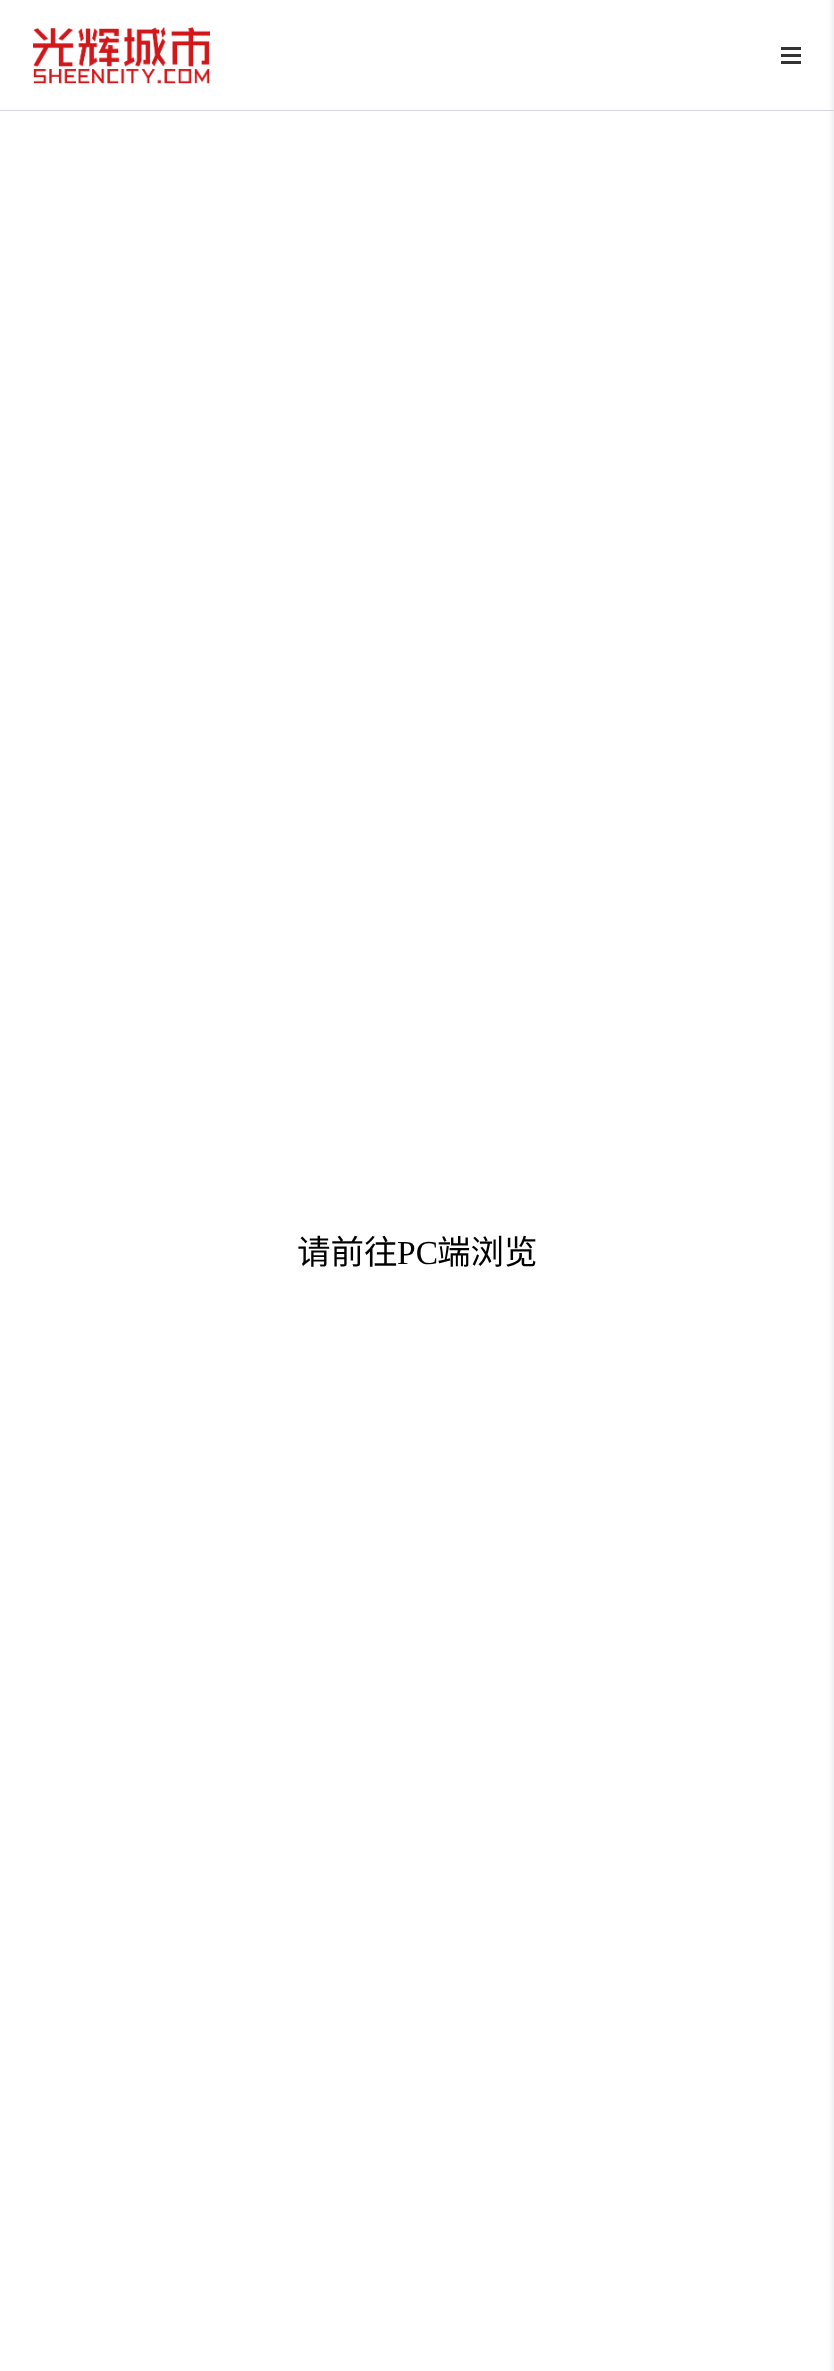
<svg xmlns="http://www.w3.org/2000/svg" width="834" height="2371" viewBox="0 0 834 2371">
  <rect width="100%" height="100%" fill="#fff"/>
  <path d="M0 110h834v1H0z" fill="#d6d7dc"/>
  <path d="M832 -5h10v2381H832z" fill="#d6d7dc80" filter="blur(2.5px)"/>
  <image x="33" y="27" width="177" height="57" href="img/1.png"/>
  <path d="M781 47h20v3H781z" fill="#333"/>
  <path d="M781 54h20v3H781z" fill="#333"/>
  <path d="M781 61h20v3H781z" fill="#333"/>
  <text x="297" y="1264" font-family="Noto Sans CJK SC" font-size="33.5" fill="#000">请前往</text>
  <text x="397" y="1264" font-family="Liberation Serif" font-size="33.5" fill="#000">PC</text>
  <text x="437" y="1264" font-family="Noto Sans CJK SC" font-size="33.5" fill="#000">端浏览</text>
</svg>
